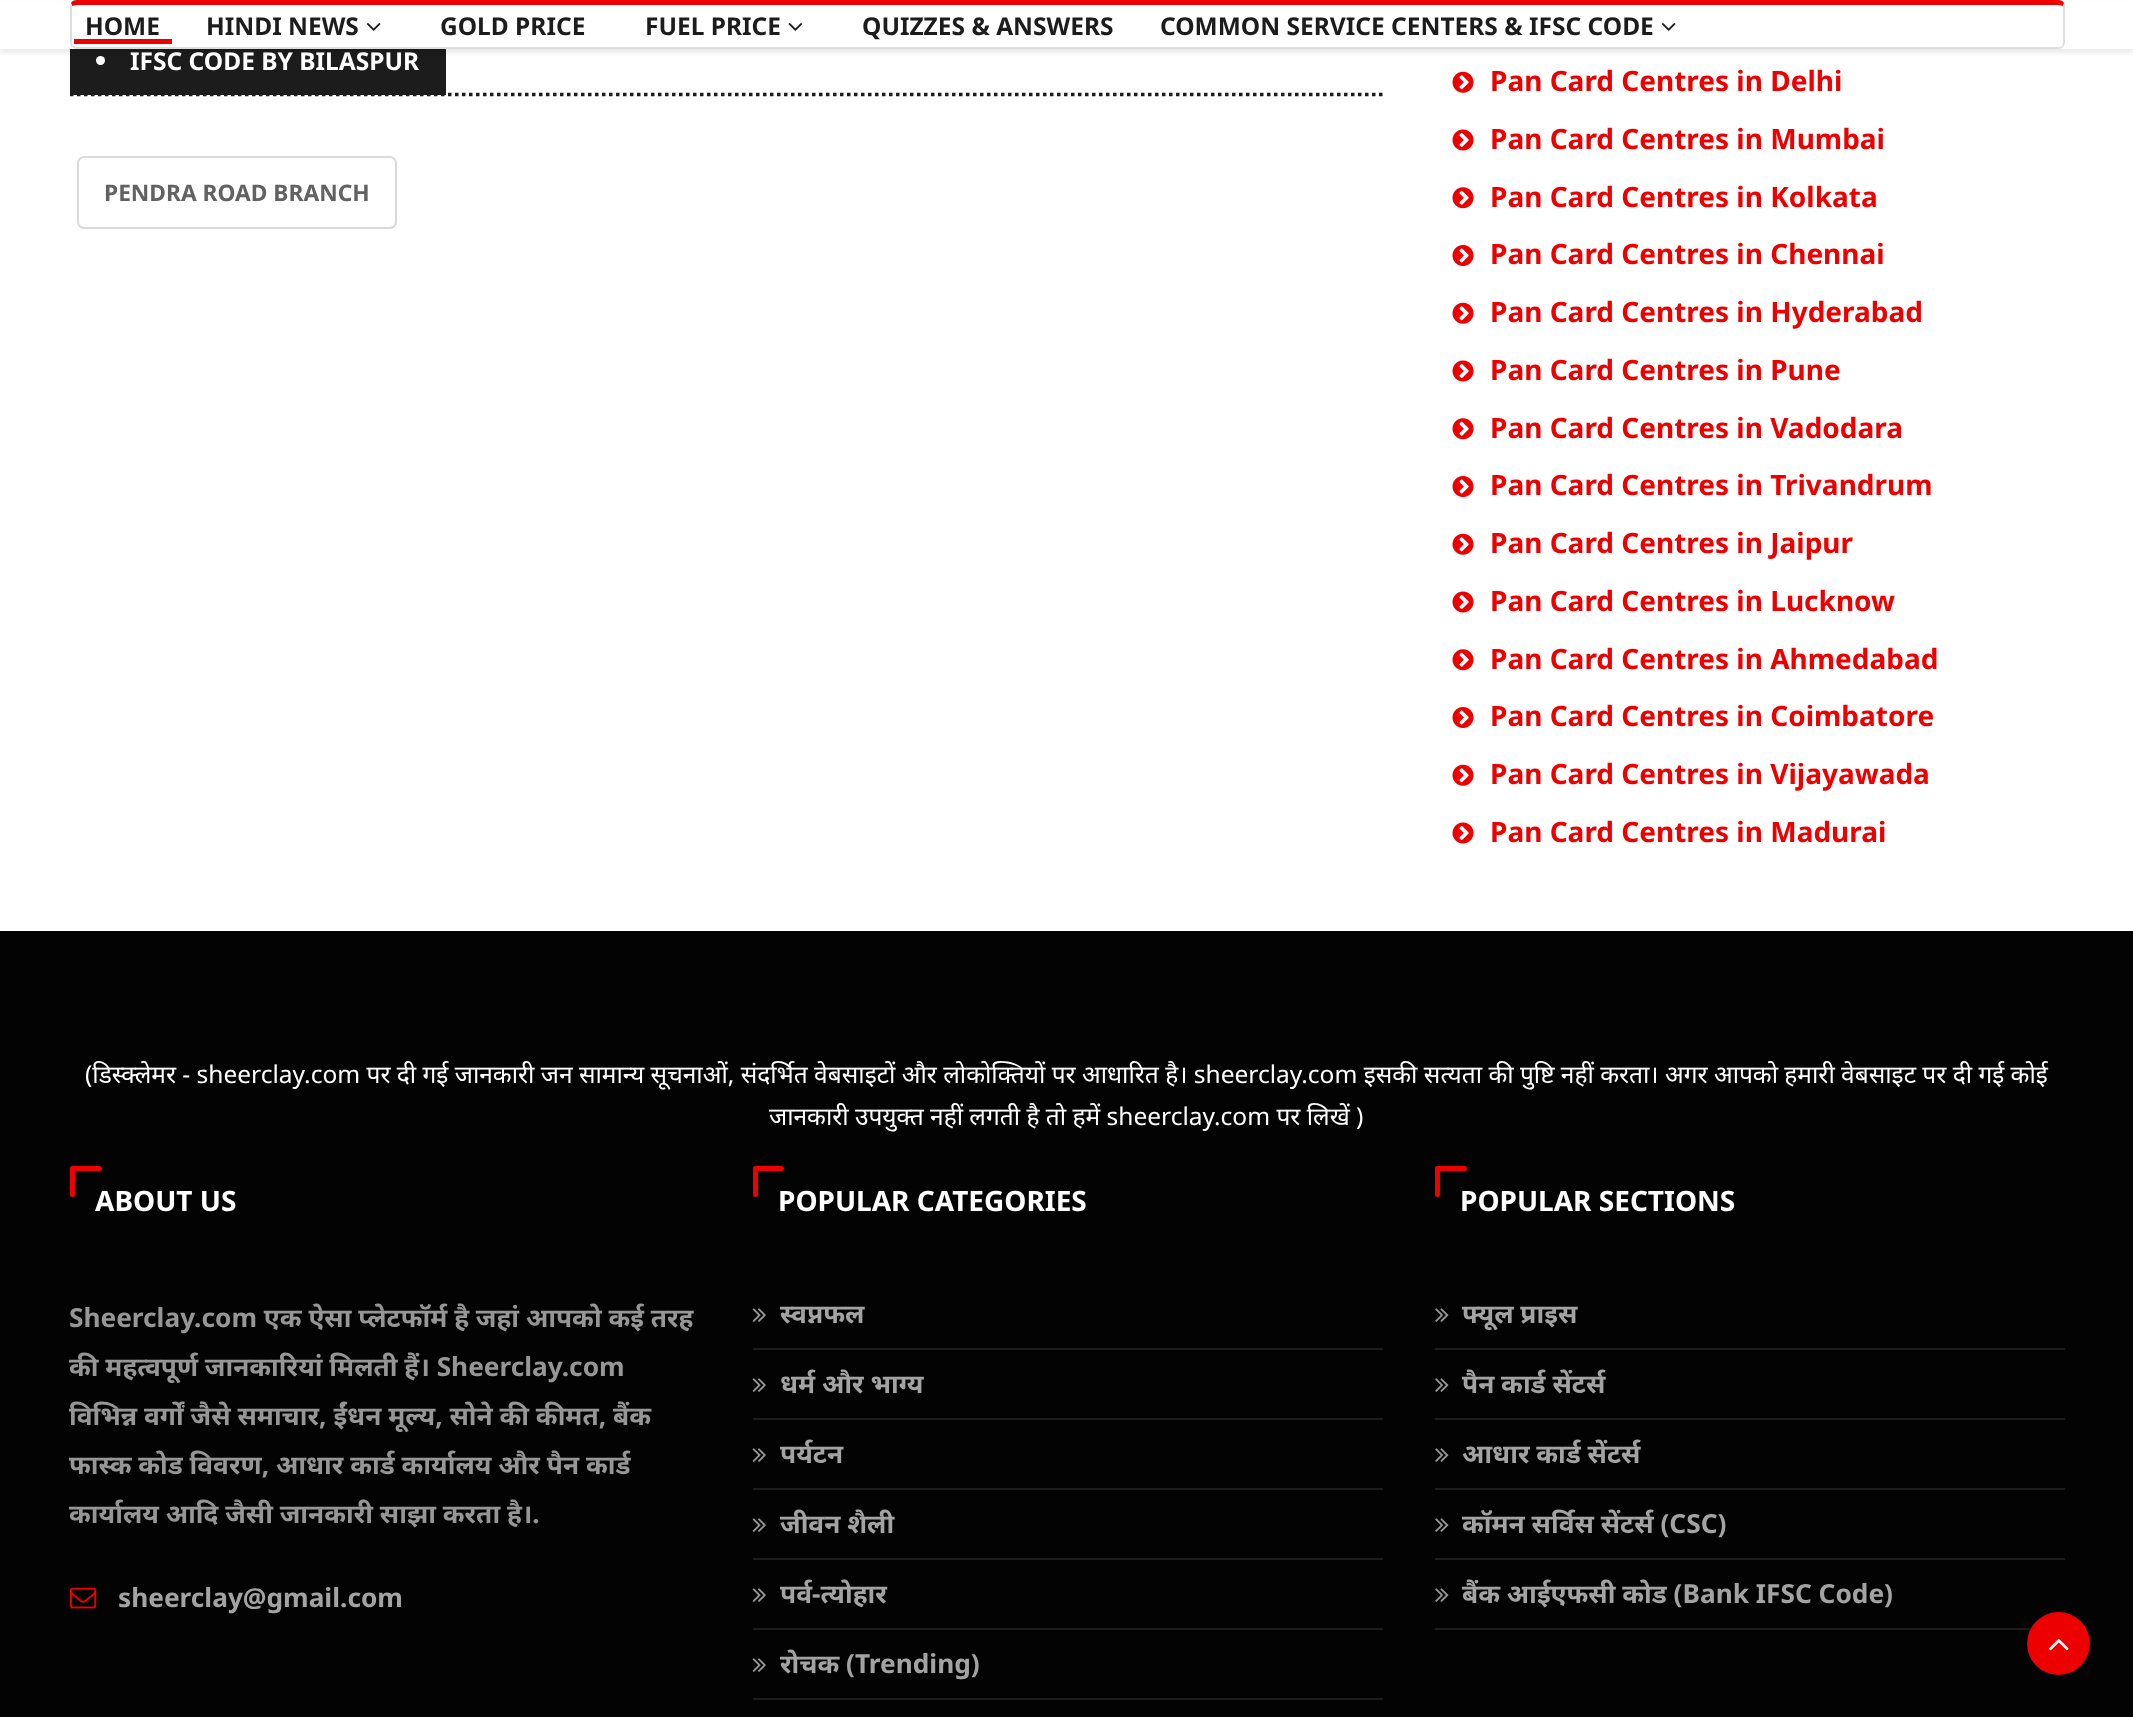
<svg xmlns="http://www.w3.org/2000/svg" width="2133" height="1717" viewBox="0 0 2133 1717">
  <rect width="100%" height="100%" fill="#fff"/>
  <path d="M70 94.5H1382.5" fill="none" stroke="#1c1c1c" stroke-width="3.5" stroke-dasharray="3.5 3.5"/>
  <path d="M70 49h376v46H70z" fill="#1c1c1c"/>
  <circle cx="100.5" cy="60.5" r="4.5" fill="#fff"/>
  <path d="M0 4h2133v49H0z" fill="#00000014" filter="blur(2px)"/>
  <path d="M0 2h2133v47H0z" fill="#fff"/>
  <path d="M77 0C74 0 72 1 71 3L72 6C73 6 75 5 77 5H2058C2060 5 2062 6 2063 6L2064 3C2063 1 2061 0 2058 0Z" fill="#ec0000"/>
  <path d="M2065 42V7C2065 6 2065 4 2064 3L2063 6V43L2062 46L2063 47C2064 46 2065 44 2065 42Z" fill="#dedede"/>
  <path d="M77 49H2058C2060 49 2062 48 2063 47L2062 46C2061 46 2060 47 2058 47H77C76 47 74 46 73 46L72 47C73 48 75 49 77 49Z" fill="#dedede"/>
  <path d="M70 7V42C70 44 71 46 72 47L73 46L72 43V6L71 3Z" fill="#dedede"/>
  <path d="M74 39h98v5H74z" fill="#ec0000"/>
  <image x="366" y="23" width="15" height="8" href="img/1.png"/>
  <image x="788" y="23" width="15" height="8" href="img/2.png"/>
  <image x="1661" y="23" width="15" height="8" href="img/1.png"/>
  <rect x="78" y="157" width="318" height="71" rx="6" fill="none" stroke="#dadada" stroke-width="2"/>
  <image x="1452" y="71" width="22" height="22" href="img/3.png"/>
  <image x="1452" y="129" width="22" height="22" href="img/4.png"/>
  <image x="1452" y="187" width="22" height="22" href="img/5.png"/>
  <image x="1452" y="245" width="22" height="21" href="img/6.png"/>
  <image x="1452" y="302" width="22" height="22" href="img/3.png"/>
  <image x="1452" y="360" width="22" height="22" href="img/4.png"/>
  <image x="1452" y="418" width="22" height="22" href="img/5.png"/>
  <image x="1452" y="476" width="22" height="21" href="img/6.png"/>
  <image x="1452" y="533" width="22" height="22" href="img/3.png"/>
  <image x="1452" y="591" width="22" height="22" href="img/4.png"/>
  <image x="1452" y="649" width="22" height="22" href="img/5.png"/>
  <image x="1452" y="707" width="22" height="21" href="img/6.png"/>
  <image x="1452" y="764" width="22" height="22" href="img/3.png"/>
  <image x="1452" y="822" width="22" height="22" href="img/4.png"/>
  <path d="M0 931h2133v786H0z" fill="#030303"/>
  <rect x="70" y="1166" width="5" height="31" rx="2.5" fill="#ec0000"/>
  <rect x="70" y="1166" width="32" height="5" rx="2.5" fill="#ec0000"/>
  <image x="70" y="1587" width="27" height="22" href="img/7.png"/>
  <rect x="753" y="1166" width="5" height="31" rx="2.5" fill="#ec0000"/>
  <rect x="753" y="1166" width="31" height="5" rx="2.5" fill="#ec0000"/>
  <path d="M753 1348h630v2H753z" fill="#1c1c1c"/>
  <image x="752" y="1308" width="14" height="14" href="img/8.png"/>
  <path d="M753 1418h630v2H753z" fill="#1c1c1c"/>
  <image x="752" y="1378" width="14" height="14" href="img/8.png"/>
  <path d="M753 1488h630v2H753z" fill="#1c1c1c"/>
  <image x="752" y="1448" width="14" height="14" href="img/8.png"/>
  <path d="M753 1558h630v2H753z" fill="#1c1c1c"/>
  <image x="752" y="1518" width="14" height="14" href="img/8.png"/>
  <path d="M753 1628h630v2H753z" fill="#1c1c1c"/>
  <image x="752" y="1588" width="14" height="14" href="img/8.png"/>
  <path d="M753 1698h630v2H753z" fill="#1c1c1c"/>
  <image x="752" y="1658" width="14" height="14" href="img/8.png"/>
  <rect x="1435" y="1166" width="5" height="31" rx="2.5" fill="#ec0000"/>
  <rect x="1435" y="1166" width="32" height="5" rx="2.5" fill="#ec0000"/>
  <path d="M1435 1348h630v2H1435z" fill="#1c1c1c"/>
  <image x="1435" y="1308" width="14" height="14" href="img/9.png"/>
  <path d="M1435 1418h630v2H1435z" fill="#1c1c1c"/>
  <image x="1435" y="1378" width="14" height="14" href="img/9.png"/>
  <path d="M1435 1488h630v2H1435z" fill="#1c1c1c"/>
  <image x="1435" y="1448" width="14" height="14" href="img/9.png"/>
  <path d="M1435 1558h630v2H1435z" fill="#1c1c1c"/>
  <image x="1435" y="1518" width="14" height="14" href="img/9.png"/>
  <path d="M1435 1628h597v2H1435z" fill="#1c1c1c"/>
  <image x="1435" y="1588" width="14" height="14" href="img/9.png"/>
  <circle cx="2058.5" cy="1643.5" r="31.5" fill="#ec0000"/>
  <image x="2049" y="1638" width="20" height="13" href="img/10.png"/>
  <g font-family="Noto Sans" font-size="24.5" font-weight="bold" fill="#1c1c1c">
    <text x="85" y="35">HOME</text>
    <text x="206" y="35">HINDI NEWS</text>
    <text x="440" y="35">GOLD PRICE</text>
    <text x="645" y="35">FUEL PRICE</text>
    <text x="862" y="35">QUIZZES &amp; ANSWERS</text>
    <text x="1160" y="35">COMMON SERVICE CENTERS &amp; IFSC CODE</text>
  </g>
  <text x="130" y="70" font-family="Noto Sans" font-size="24.5" font-weight="bold" fill="#fff">IFSC CODE BY BILASPUR</text>
  <text x="104" y="201" font-family="Noto Sans" font-size="22.75" font-weight="bold" fill="#626262">PENDRA ROAD BRANCH</text>
  <g font-family="Noto Sans" font-size="28" font-weight="bold" fill="#ec0000">
    <text x="1490" y="91">Pan Card Centres in Delhi</text>
    <text x="1490" y="149">Pan Card Centres in Mumbai</text>
    <text x="1490" y="207">Pan Card Centres in Kolkata</text>
    <text x="1490" y="264">Pan Card Centres in Chennai</text>
    <text x="1490" y="322">Pan Card Centres in Hyderabad</text>
    <text x="1490" y="380">Pan Card Centres in Pune</text>
    <text x="1490" y="438">Pan Card Centres in Vadodara</text>
    <text x="1490" y="495">Pan Card Centres in Trivandrum</text>
    <text x="1490" y="553">Pan Card Centres in Jaipur</text>
    <text x="1490" y="611">Pan Card Centres in Lucknow</text>
    <text x="1490" y="669">Pan Card Centres in Ahmedabad</text>
    <text x="1490" y="726">Pan Card Centres in Coimbatore</text>
    <text x="1490" y="784">Pan Card Centres in Vijayawada</text>
    <text x="1490" y="842">Pan Card Centres in Madurai</text>
  </g>
  <g font-family="Noto Sans" font-size="24.5" fill="#fff">
    <text x="85" y="1083">(डिस्क्लेमर - sheerclay.com पर दी गई जानकारी जन सामान्य सूचनाओं, संदर्भित वेबसाइटों और लोकोक्तियों पर आधारित है। sheerclay.com इसकी सत्यता की पुष्टि नहीं करता। अगर आपको हमारी वेबसाइट पर दी गई कोई</text>
    <text x="769" y="1125">जानकारी उपयुक्त नहीं लगती है तो हमें sheerclay.com पर लिखें )</text>
  </g>
  <text x="95" y="1211" font-family="Noto Sans" font-size="28" font-weight="bold" fill="#fff">ABOUT US</text>
  <g font-family="Noto Sans" font-size="26.25" font-weight="bold" fill="#969696">
    <text x="69" y="1327">Sheerclay.com एक ऐसा प्लेटफॉर्म है जहां आपको कई तरह</text>
    <text x="69" y="1376">की महत्वपूर्ण जानकारियां मिलती हैं। Sheerclay.com</text>
    <text x="69" y="1425">विभिन्न वर्गों जैसे समाचार, ईंधन मूल्य, सोने की कीमत, बैंक</text>
    <text x="69" y="1474">फास्क कोड विवरण, आधार कार्ड कार्यालय और पैन कार्ड</text>
    <text x="69" y="1523">कार्यालय आदि जैसी जानकारी साझा करता है।.</text>
  </g>
  <text x="118" y="1607" font-family="Noto Sans" font-size="26.25" font-weight="bold" fill="#a3a3a3">sheerclay@gmail.com</text>
  <text x="778" y="1211" font-family="Noto Sans" font-size="28" font-weight="bold" fill="#fff">POPULAR CATEGORIES</text>
  <g font-family="Noto Sans" font-size="26.25" font-weight="bold" fill="#a3a3a3">
    <text x="780" y="1323">स्वप्नफल</text>
    <text x="780" y="1393">धर्म और भाग्य</text>
    <text x="780" y="1463">पर्यटन</text>
    <text x="780" y="1533">जीवन शैली</text>
    <text x="780" y="1603">पर्व-त्योहार</text>
    <text x="780" y="1673">रोचक (Trending)</text>
  </g>
  <text x="1460" y="1211" font-family="Noto Sans" font-size="28" font-weight="bold" fill="#fff">POPULAR SECTIONS</text>
  <g font-family="Noto Sans" font-size="26.25" font-weight="bold" fill="#a3a3a3">
    <text x="1462" y="1323">फ्यूल प्राइस</text>
    <text x="1462" y="1393">पैन कार्ड सेंटर्स</text>
    <text x="1462" y="1463">आधार कार्ड सेंटर्स</text>
    <text x="1462" y="1533">कॉमन सर्विस सेंटर्स (CSC)</text>
    <text x="1462" y="1603">बैंक आईएफसी कोड (Bank IFSC Code)</text>
  </g>
</svg>
